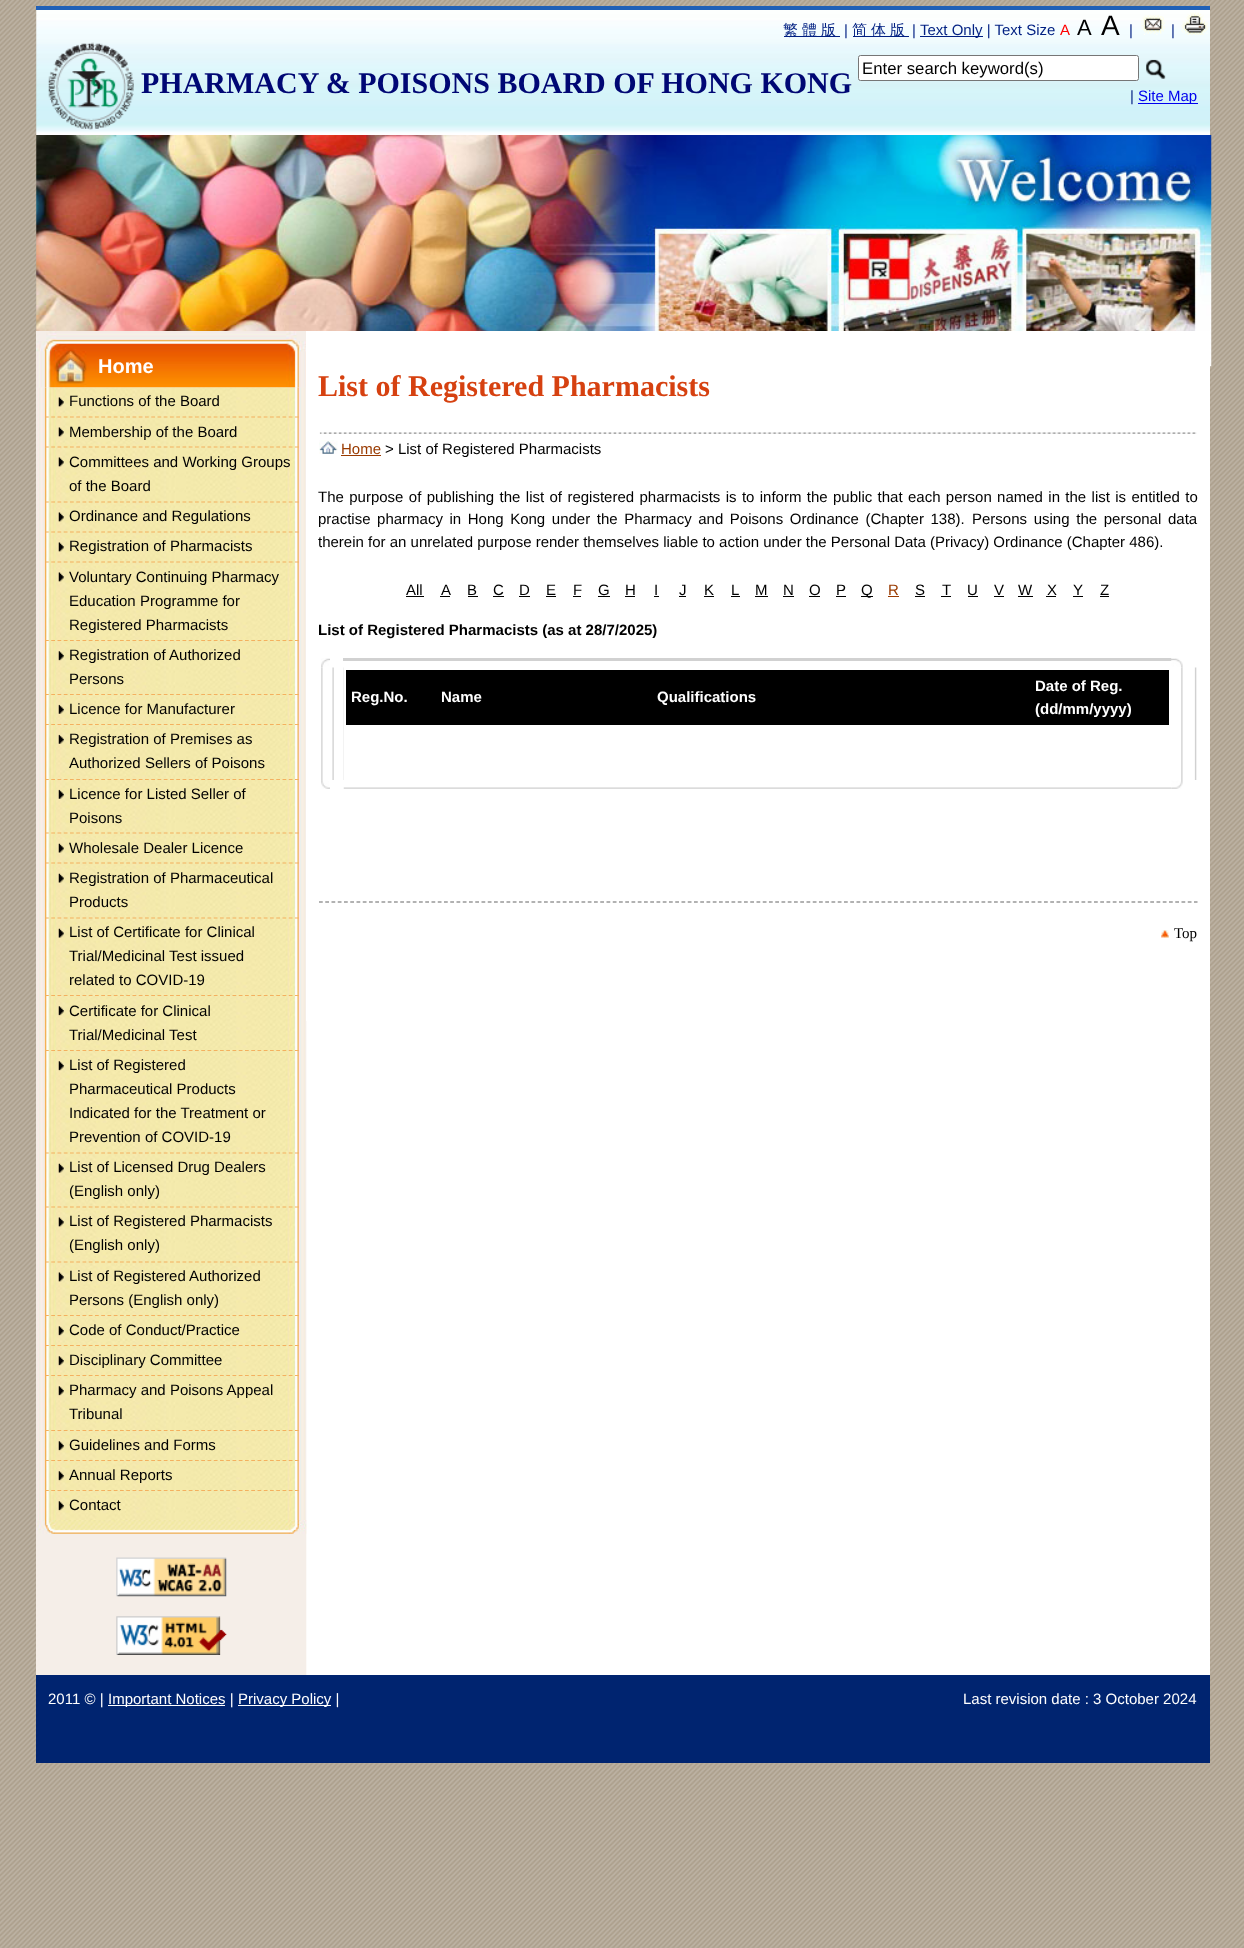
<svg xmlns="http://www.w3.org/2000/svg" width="1244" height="1948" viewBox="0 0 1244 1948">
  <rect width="100%" height="100%" fill="#fff"/>
  <image x="0" y="0" width="1244" height="1948" href="img/1.png"/>
  <image x="36" y="10" width="1174" height="125" href="img/2.png"/>
  <path d="M36 6h1174v4H36z" fill="#2060b7"/>
  <path d="M784 36h56v1H784z" fill="#001f82"/>
  <path d="M853 36h56v1H853z" fill="#001f82"/>
  <path d="M920 36h63v1H920z" fill="#001f82"/>
  <image x="1141" y="15" width="25" height="20" href="img/3.png"/>
  <image x="1181" y="12" width="28" height="23" href="img/4.png"/>
  <image x="48" y="42" width="86" height="88" href="img/5.png"/>
  <rect x="858.5" y="55.5" width="280" height="25" rx="2" fill="#fff" stroke="#767676"/>
  <image x="1146" y="59" width="20" height="20" href="img/6.png"/>
  <path d="M1138 103h60v1H1138z" fill="#00e"/>
  <image x="36" y="135" width="1176" height="232" href="img/7.png"/>
  <path d="M307 1021h903v654H307z" fill="#fff"/>
  <image x="306" y="1021" width="1" height="654" href="img/8.png"/>
  <path d="M36 331h270v1344H36z" fill="#f5eee8"/>
  <image x="36" y="331" width="270" height="57" href="img/9.png"/>
  <image x="38" y="387" width="267" height="1133" href="img/10.png"/>
  <image x="58" y="397" width="6" height="10" href="img/11.png"/>
  <path d="M45 417H299" fill="none" stroke="#f4b05f" stroke-width="1.2" stroke-dasharray="3.75 2.5"/>
  <image x="58" y="427" width="6" height="10" href="img/12.png"/>
  <path d="M45 447H299" fill="none" stroke="#f4b05f" stroke-width="1.2" stroke-dasharray="3.75 2.5"/>
  <image x="58" y="457" width="6" height="10" href="img/12.png"/>
  <path d="M45 502H299" fill="none" stroke="#f4b05f" stroke-width="1.2" stroke-dasharray="3.75 2.5"/>
  <image x="58" y="512" width="6" height="10" href="img/13.png"/>
  <path d="M45 532H299" fill="none" stroke="#f4b05f" stroke-width="1.2" stroke-dasharray="3.75 2.5"/>
  <image x="58" y="542" width="6" height="10" href="img/13.png"/>
  <path d="M45 562H299" fill="none" stroke="#f4b05f" stroke-width="1.2" stroke-dasharray="3.75 2.5"/>
  <image x="58" y="572" width="6" height="10" href="img/13.png"/>
  <path d="M45 640.5H299" fill="none" stroke="#f4b05f" stroke-width="1.2" stroke-dasharray="3.75 2.5"/>
  <image x="58" y="651" width="6" height="10" href="img/14.png"/>
  <path d="M45 694.5H299" fill="none" stroke="#f4b05f" stroke-width="1.2" stroke-dasharray="3.75 2.5"/>
  <image x="58" y="704" width="6" height="10" href="img/15.png"/>
  <path d="M45 724.5H299" fill="none" stroke="#f4b05f" stroke-width="1.2" stroke-dasharray="3.75 2.5"/>
  <image x="58" y="734" width="6" height="10" href="img/15.png"/>
  <path d="M45 779.5H299" fill="none" stroke="#f4b05f" stroke-width="1.2" stroke-dasharray="3.75 2.5"/>
  <image x="58" y="789" width="6" height="10" href="img/16.png"/>
  <path d="M45 833H299" fill="none" stroke="#f4b05f" stroke-width="1.2" stroke-dasharray="3.75 2.5"/>
  <image x="58" y="843" width="6" height="10" href="img/17.png"/>
  <path d="M45 863H299" fill="none" stroke="#f4b05f" stroke-width="1.2" stroke-dasharray="3.75 2.5"/>
  <image x="58" y="873" width="6" height="10" href="img/17.png"/>
  <path d="M45 918H299" fill="none" stroke="#f4b05f" stroke-width="1.2" stroke-dasharray="3.75 2.5"/>
  <image x="58" y="928" width="6" height="10" href="img/18.png"/>
  <path d="M45 995.5H299" fill="none" stroke="#f4b05f" stroke-width="1.2" stroke-dasharray="3.75 2.5"/>
  <image x="58" y="1006" width="6" height="10" href="img/19.png"/>
  <path d="M45 1050.5H299" fill="none" stroke="#f4b05f" stroke-width="1.2" stroke-dasharray="3.75 2.5"/>
  <image x="58" y="1061" width="6" height="10" href="img/20.png"/>
  <path d="M45 1153H299" fill="none" stroke="#f4b05f" stroke-width="1.2" stroke-dasharray="3.75 2.5"/>
  <image x="58" y="1163" width="6" height="10" href="img/21.png"/>
  <path d="M45 1207H299" fill="none" stroke="#f4b05f" stroke-width="1.2" stroke-dasharray="3.75 2.5"/>
  <image x="58" y="1217" width="6" height="10" href="img/22.png"/>
  <path d="M45 1262H299" fill="none" stroke="#f4b05f" stroke-width="1.2" stroke-dasharray="3.75 2.5"/>
  <image x="58" y="1272" width="6" height="10" href="img/23.png"/>
  <path d="M45 1315.5H299" fill="none" stroke="#f4b05f" stroke-width="1.2" stroke-dasharray="3.75 2.5"/>
  <image x="58" y="1326" width="6" height="10" href="img/24.png"/>
  <path d="M45 1345.5H299" fill="none" stroke="#f4b05f" stroke-width="1.2" stroke-dasharray="3.75 2.5"/>
  <image x="58" y="1356" width="6" height="10" href="img/24.png"/>
  <path d="M45 1375.5H299" fill="none" stroke="#f4b05f" stroke-width="1.2" stroke-dasharray="3.75 2.5"/>
  <image x="58" y="1386" width="6" height="10" href="img/24.png"/>
  <path d="M45 1430.5H299" fill="none" stroke="#f4b05f" stroke-width="1.2" stroke-dasharray="3.75 2.5"/>
  <image x="58" y="1441" width="6" height="10" href="img/19.png"/>
  <path d="M45 1460.5H299" fill="none" stroke="#f4b05f" stroke-width="1.2" stroke-dasharray="3.75 2.5"/>
  <image x="58" y="1471" width="6" height="10" href="img/19.png"/>
  <path d="M45 1490.5H299" fill="none" stroke="#f4b05f" stroke-width="1.2" stroke-dasharray="3.75 2.5"/>
  <image x="58" y="1501" width="6" height="10" href="img/19.png"/>
  <image x="36" y="1520" width="271" height="14" href="img/25.png"/>
  <image x="116" y="1557" width="111" height="40" href="img/26.png"/>
  <image x="116" y="1616" width="111" height="39" href="img/27.png"/>
  <path d="M306 331h904v690H306z" fill="#fff"/>
  <image x="319" y="432" width="878" height="2" href="img/28.png"/>
  <image x="319" y="440" width="19" height="14" href="img/29.png"/>
  <path d="M341 455h40v1H341z" fill="#993a00"/>
  <path d="M406 596h18v1H406z" fill="#000"/>
  <path d="M440 596h10v1H440z" fill="#000"/>
  <path d="M468 596h10v1H468z" fill="#000"/>
  <path d="M493 596h11v1H493z" fill="#000"/>
  <path d="M519 596h11v1H519z" fill="#000"/>
  <path d="M546 596h10v1H546z" fill="#000"/>
  <path d="M573 596h8v1H573z" fill="#000"/>
  <path d="M598 596h12v1H598z" fill="#000"/>
  <path d="M625 596h10v1H625z" fill="#000"/>
  <path d="M654 596h5v1H654z" fill="#000"/>
  <path d="M679 596h7v1H679z" fill="#000"/>
  <path d="M704 596h10v1H704z" fill="#000"/>
  <path d="M731 596h9v1H731z" fill="#000"/>
  <path d="M755 596h13v1H755z" fill="#000"/>
  <path d="M783 596h11v1H783z" fill="#000"/>
  <path d="M809 596h11v1H809z" fill="#000"/>
  <path d="M836 596h10v1H836z" fill="#000"/>
  <path d="M861 596h12v1H861z" fill="#000"/>
  <path d="M888 596h11v1H888z" fill="#993a00"/>
  <path d="M915 596h10v1H915z" fill="#000"/>
  <path d="M941 596h10v1H941z" fill="#000"/>
  <path d="M968 596h10v1H968z" fill="#000"/>
  <path d="M994 596h10v1H994z" fill="#000"/>
  <path d="M1018 596h15v1H1018z" fill="#000"/>
  <path d="M1046 596h10v1H1046z" fill="#000"/>
  <path d="M1073 596h10v1H1073z" fill="#000"/>
  <path d="M1100 596h9v1H1100z" fill="#000"/>
  <image x="321" y="667" width="23" height="113" href="img/32.png"/>
  <image x="321" y="658" width="9" height="10" href="img/30.png"/>
  <path d="M343 658h829v3H343z" fill="#d1d1d1"/>
  <image x="1181" y="667" width="16" height="113" href="img/33.png"/>
  <image x="1171" y="658" width="12" height="10" href="img/31.png"/>
  <path d="M346 670h823v55H346z" fill="#000"/>
  <image x="321" y="780" width="9" height="9" href="img/34.png"/>
  <image x="343" y="787" width="829" height="2" href="img/35.png"/>
  <image x="1171" y="780" width="12" height="9" href="img/36.png"/>
  <path d="M319 902H1197.5" fill="none" stroke="#666" stroke-width="1.2" stroke-dasharray="3.75 2.5"/>
  <image x="1161" y="930" width="8" height="8" href="img/37.png"/>
  <path d="M36 1675h1174v88H36z" fill="#002470"/>
  <path d="M108 1705h117v1H108z" fill="#fff"/>
  <path d="M238 1705h93v1H238z" fill="#fff"/>
  <text x="783" y="35" font-family="WenQuanYi Zen Hei" font-size="15" font-weight="500" letter-spacing="4" fill="#001f82">繁體版</text>
  <text x="844" y="35" font-family="Liberation Sans" font-size="15" fill="#001f82">|</text>
  <text x="852" y="35" font-family="WenQuanYi Zen Hei" font-size="15" font-weight="500" letter-spacing="4" fill="#001f82">简体版</text>
  <g font-family="Liberation Sans" font-size="15" fill="#001f82">
    <text x="912" y="35">|</text>
    <text x="920" y="35">Text Only | Text Size</text>
  </g>
  <text x="1060" y="35" font-family="Liberation Sans" font-size="15" letter-spacing="1" fill="#f00">A</text>
  <text x="1077" y="35" font-family="Liberation Sans" font-size="22" letter-spacing="1" fill="#000">A</text>
  <text x="1101" y="35" font-family="Liberation Sans" font-size="28" letter-spacing="1" fill="#000">A</text>
  <g font-family="Liberation Sans" font-size="15" fill="#001f82">
    <text x="1129" y="35">|</text>
    <text x="1171" y="35">|</text>
  </g>
  <text x="141" y="93" font-family="Liberation Serif" font-size="30" font-weight="bold" fill="#000774">PHARMACY &amp; POISONS BOARD OF HONG KONG</text>
  <text x="862" y="74" font-family="Liberation Sans" font-size="16.75" fill="#000">Enter search keyword(s)</text>
  <text x="1130" y="101" font-family="Liberation Sans" font-size="15" fill="#001f82">|</text>
  <text x="1138" y="101" font-family="Liberation Sans" font-size="15" fill="#00e">Site Map</text>
  <text x="98" y="373" font-family="Liberation Sans" font-size="20" font-weight="bold" fill="#fff">Home</text>
  <g font-family="Liberation Sans" font-size="15" fill="#000">
    <text x="69" y="406">Functions of the Board</text>
    <text x="69" y="437">Membership of the Board</text>
    <text x="69" y="467">Committees and Working Groups</text>
    <text x="69" y="491">of the Board</text>
    <text x="69" y="521">Ordinance and Regulations</text>
    <text x="69" y="551">Registration of Pharmacists</text>
    <text x="69" y="582">Voluntary Continuing Pharmacy</text>
    <text x="69" y="606">Education Programme for</text>
    <text x="69" y="630">Registered Pharmacists</text>
    <text x="69" y="660">Registration of Authorized</text>
    <text x="69" y="684">Persons</text>
    <text x="69" y="714">Licence for Manufacturer</text>
    <text x="69" y="744">Registration of Premises as</text>
    <text x="69" y="768">Authorized Sellers of Poisons</text>
    <text x="69" y="799">Licence for Listed Seller of</text>
    <text x="69" y="823">Poisons</text>
    <text x="69" y="853">Wholesale Dealer Licence</text>
    <text x="69" y="883">Registration of Pharmaceutical</text>
    <text x="69" y="907">Products</text>
    <text x="69" y="937">List of Certificate for Clinical</text>
    <text x="69" y="961">Trial/Medicinal Test issued</text>
    <text x="69" y="985">related to COVID-19</text>
    <text x="69" y="1016">Certificate for Clinical</text>
    <text x="69" y="1040">Trial/Medicinal Test</text>
    <text x="69" y="1070">List of Registered</text>
    <text x="69" y="1094">Pharmaceutical Products</text>
    <text x="69" y="1118">Indicated for the Treatment or</text>
    <text x="69" y="1142">Prevention of COVID-19</text>
    <text x="69" y="1172">List of Licensed Drug Dealers</text>
    <text x="69" y="1196">(English only)</text>
    <text x="69" y="1226">List of Registered Pharmacists</text>
    <text x="69" y="1250">(English only)</text>
    <text x="69" y="1281">List of Registered Authorized</text>
    <text x="69" y="1305">Persons (English only)</text>
    <text x="69" y="1335">Code of Conduct/Practice</text>
    <text x="69" y="1365">Disciplinary Committee</text>
    <text x="69" y="1395">Pharmacy and Poisons Appeal</text>
    <text x="69" y="1419">Tribunal</text>
    <text x="69" y="1450">Guidelines and Forms</text>
    <text x="69" y="1480">Annual Reports</text>
    <text x="69" y="1510">Contact</text>
  </g>
  <text x="318" y="396" font-family="Liberation Serif" font-size="30" font-weight="bold" fill="#d64110">List of Registered Pharmacists</text>
  <text x="341" y="454" font-family="Liberation Sans" font-size="15" fill="#993a00">Home</text>
  <g font-family="Liberation Sans" font-size="15" fill="#000">
    <text x="385" y="454">&gt; List of Registered Pharmacists</text>
    <text x="318" y="502" word-spacing="1.2">The purpose of publishing the list of registered pharmacists is to inform the public that each person named in the list is entitled to</text>
    <text x="318" y="524" word-spacing="2.4">practise pharmacy in Hong Kong under the Pharmacy and Poisons Ordinance (Chapter 138).</text>
    <text x="972" y="524" word-spacing="2.5">Persons using the personal data</text>
    <text x="318" y="547">therein for an unrelated purpose render themselves liable to action under the Personal Data (Privacy) Ordinance (Chapter 486).</text>
    <text x="406" y="595">All</text>
    <text x="441" y="595">A</text>
    <text x="467" y="595">B</text>
    <text x="493" y="595">C</text>
    <text x="519" y="595">D</text>
    <text x="546" y="595">E</text>
    <text x="573" y="595">F</text>
    <text x="598" y="595">G</text>
    <text x="625" y="595">H</text>
    <text x="654" y="595">I</text>
    <text x="679" y="595">J</text>
    <text x="704" y="595">K</text>
    <text x="731" y="595">L</text>
    <text x="755" y="595">M</text>
    <text x="783" y="595">N</text>
    <text x="809" y="595">O</text>
    <text x="836" y="595">P</text>
    <text x="861" y="595">Q</text>
  </g>
  <text x="888" y="595" font-family="Liberation Sans" font-size="15" fill="#993a00">R</text>
  <g font-family="Liberation Sans" font-size="15" fill="#000">
    <text x="915" y="595">S</text>
    <text x="942" y="595">T</text>
    <text x="967" y="595">U</text>
    <text x="994" y="595">V</text>
    <text x="1018" y="595">W</text>
    <text x="1047" y="595">X</text>
    <text x="1073" y="595">Y</text>
    <text x="1100" y="595">Z</text>
  </g>
  <text x="318" y="635" font-family="Liberation Sans" font-size="15" font-weight="bold" fill="#000">List of Registered Pharmacists (as at 28/7/2025)</text>
  <g font-family="Liberation Sans" font-size="15" font-weight="bold" fill="#fff">
    <text x="351" y="702">Reg.No.</text>
    <text x="441" y="702">Name</text>
    <text x="657" y="702">Qualifications</text>
    <text x="1035" y="691">Date of Reg.</text>
    <text x="1035" y="714">(dd/mm/yyyy)</text>
  </g>
  <text x="1174" y="938" font-family="Liberation Serif" font-size="15" fill="#000">Top</text>
  <g font-family="Liberation Sans" font-size="15" fill="#fff">
    <text x="48" y="1704">2011 © |</text>
    <text x="108" y="1704">Important Notices |</text>
    <text x="238" y="1704">Privacy Policy |</text>
    <text x="963" y="1704">Last revision date : 3 October 2024</text>
  </g>
</svg>
